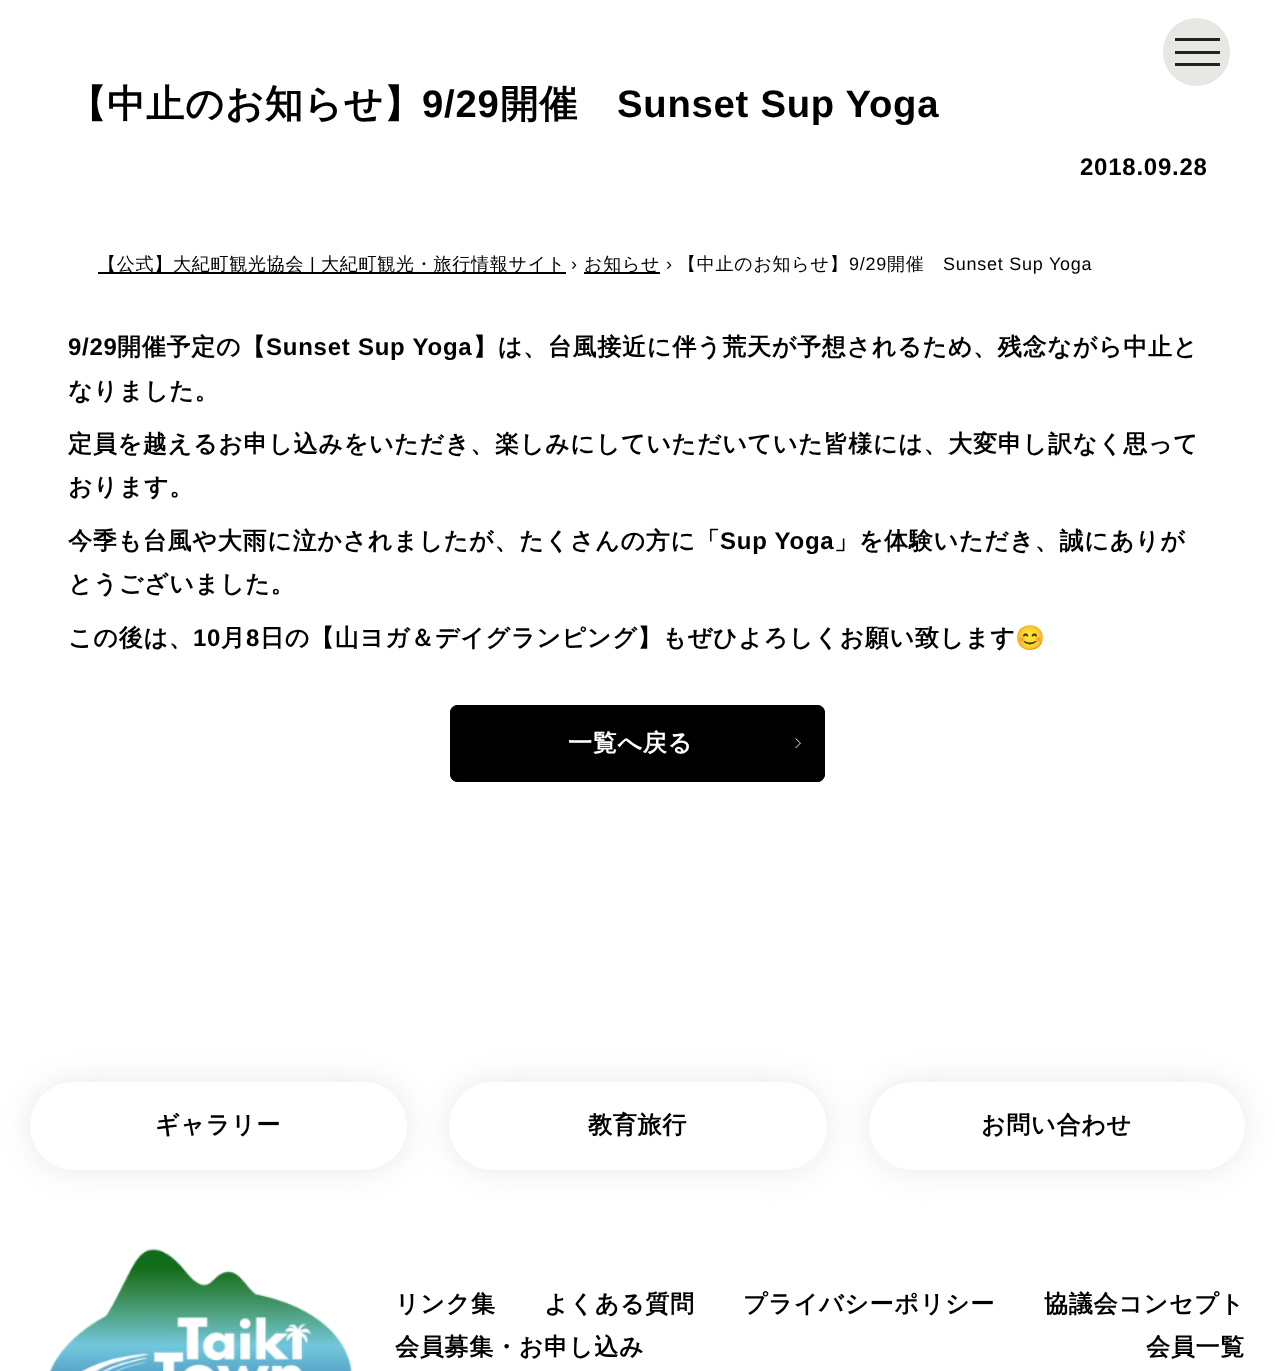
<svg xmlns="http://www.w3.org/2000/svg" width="1275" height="1371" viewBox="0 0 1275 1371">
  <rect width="100%" height="100%" fill="#fff"/>
  <rect x="1163" y="18" width="67" height="68" rx="33.5" fill="#e9e7e4"/>
  <path d="M1175 38h45v3H1175z" fill="#242323"/>
  <path d="M1175 51h45v3H1175z" fill="#242323"/>
  <path d="M1175 63h45v3H1175z" fill="#242323"/>
  <path d="M98 272h468v2H98z" fill="#000"/>
  <path d="M584 272h76v2H584z" fill="#000"/>
  <rect x="450" y="705" width="375" height="77" rx="8" fill="#000"/>
  <path d="M795.5 738.5L800.5 743L795.5 748" fill="none" stroke="#fff" stroke-width="0.9"/>
  <rect x="451" y="706" width="373" height="75" rx="7" fill="none" stroke="#000" stroke-width="2"/>
  <rect x="30" y="1082" width="377" height="88" rx="44" fill="#d3d7d78f" filter="blur(16.5px)"/>
  <rect x="30" y="1082" width="377" height="88" rx="44" fill="#fff"/>
  <rect x="449" y="1082" width="378" height="88" rx="44" fill="#d3d7d78f" filter="blur(16.5px)"/>
  <rect x="449" y="1082" width="378" height="88" rx="44" fill="#fff"/>
  <rect x="869" y="1082" width="376" height="88" rx="44" fill="#d3d7d78f" filter="blur(16.5px)"/>
  <rect x="869" y="1082" width="376" height="88" rx="44" fill="#fff"/>
  <image x="49" y="1248" width="303" height="123" href="img/1.png"/>
  <text x="68" y="117" font-family="WenQuanYi Zen Hei" font-size="38.25" font-weight="bold" letter-spacing="0.75" fill="#000">【中止のお知らせ】</text>
  <text x="422" y="117" font-family="Liberation Sans" font-size="38.25" font-weight="bold" letter-spacing="0.75" fill="#000">9/29</text>
  <text x="500" y="117" font-family="WenQuanYi Zen Hei" font-size="38.25" font-weight="bold" letter-spacing="0.75" fill="#000">開催</text>
  <text x="617" y="117" font-family="Liberation Sans" font-size="38.25" font-weight="bold" letter-spacing="0.75" fill="#000">Sunset Sup Yoga</text>
  <text x="1080" y="175" font-family="Liberation Sans" font-size="24" font-weight="bold" letter-spacing="0.75" fill="#000">2018.09.28</text>
  <text x="98" y="270" font-family="WenQuanYi Zen Hei" font-size="18" font-weight="500" letter-spacing="0.75" fill="#000">【公式】大紀町観光協会</text>
  <text x="310" y="270" font-family="Liberation Sans" font-size="18" letter-spacing="0.75" fill="#000">|</text>
  <text x="321" y="270" font-family="WenQuanYi Zen Hei" font-size="18" font-weight="500" letter-spacing="0.75" fill="#000">大紀町観光・旅行情報サイト</text>
  <text x="571" y="270" font-family="Liberation Sans" font-size="18" letter-spacing="0.75" fill="#000">›</text>
  <text x="584" y="270" font-family="WenQuanYi Zen Hei" font-size="18" font-weight="500" letter-spacing="0.75" fill="#000">お知らせ</text>
  <text x="666" y="270" font-family="Liberation Sans" font-size="18" letter-spacing="0.75" fill="#000">›</text>
  <text x="678" y="270" font-family="WenQuanYi Zen Hei" font-size="18" font-weight="500" letter-spacing="0.75" fill="#000">【中止のお知らせ】</text>
  <text x="849" y="270" font-family="Liberation Sans" font-size="18" letter-spacing="0.75" fill="#000">9/29</text>
  <text x="887" y="270" font-family="WenQuanYi Zen Hei" font-size="18" font-weight="500" letter-spacing="0.75" fill="#000">開催</text>
  <text x="943" y="270" font-family="Liberation Sans" font-size="18" letter-spacing="0.75" fill="#000">Sunset Sup Yoga</text>
  <text x="68" y="355" font-family="Liberation Sans" font-size="24" font-weight="bold" letter-spacing="0.75" fill="#000">9/29</text>
  <text x="117" y="355" font-family="WenQuanYi Zen Hei" font-size="24" font-weight="bold" letter-spacing="0.75" fill="#000">開催予定の【</text>
  <text x="266" y="355" font-family="Liberation Sans" font-size="24" font-weight="bold" letter-spacing="0.75" fill="#000">Sunset Sup Yoga</text>
  <g font-family="WenQuanYi Zen Hei" font-size="24" font-weight="bold" letter-spacing="0.75" fill="#000">
    <text x="473" y="355">】は、台風接近に伴う荒天が予想されるため、残念ながら中止と</text>
    <text x="68" y="399">なりました。</text>
    <text x="68" y="452">定員を越えるお申し込みをいただき、楽しみにしていただいていた皆様には、大変申し訳なく思って</text>
    <text x="68" y="495">おります。</text>
    <text x="68" y="549">今季も台風や大雨に泣かされましたが、たくさんの方に「</text>
  </g>
  <text x="720" y="549" font-family="Liberation Sans" font-size="24" font-weight="bold" letter-spacing="0.75" fill="#000">Sup Yoga</text>
  <g font-family="WenQuanYi Zen Hei" font-size="24" font-weight="bold" letter-spacing="0.75" fill="#000">
    <text x="834" y="549">」を体験いただき、誠にありが</text>
    <text x="68" y="592">とうございました。</text>
    <text x="68" y="646">この後は、</text>
  </g>
  <text x="193" y="646" font-family="Liberation Sans" font-size="24" font-weight="bold" letter-spacing="0.75" fill="#000">10</text>
  <text x="221" y="646" font-family="WenQuanYi Zen Hei" font-size="24" font-weight="bold" letter-spacing="0.75" fill="#000">月</text>
  <text x="246" y="646" font-family="Liberation Sans" font-size="24" font-weight="bold" letter-spacing="0.75" fill="#000">8</text>
  <text x="260" y="646" font-family="WenQuanYi Zen Hei" font-size="24" font-weight="bold" letter-spacing="0.75" fill="#000">日の【山ヨガ＆デイグランピング】もぜひよろしくお願い致します</text>
  <text x="1015" y="646" font-family="Noto Color Emoji" font-size="24" font-weight="bold" letter-spacing="0.75" fill="#000">😊</text>
  <text x="568" y="751" font-family="WenQuanYi Zen Hei" font-size="24" font-weight="bold" letter-spacing="0.75" fill="#fff">一覧へ戻る</text>
  <g font-family="WenQuanYi Zen Hei" font-size="24" font-weight="bold" letter-spacing="0.75" fill="#000">
    <text x="155" y="1133">ギャラリー</text>
    <text x="588" y="1133">教育旅行</text>
    <text x="981" y="1133">お問い合わせ</text>
    <text x="395" y="1312">リンク集</text>
    <text x="544" y="1312">よくある質問</text>
    <text x="743" y="1312">プライバシーポリシー</text>
    <text x="1044" y="1312">協議会コンセプト</text>
    <text x="395" y="1355">会員募集・お申し込み</text>
    <text x="1146" y="1355">会員一覧</text>
  </g>
</svg>
